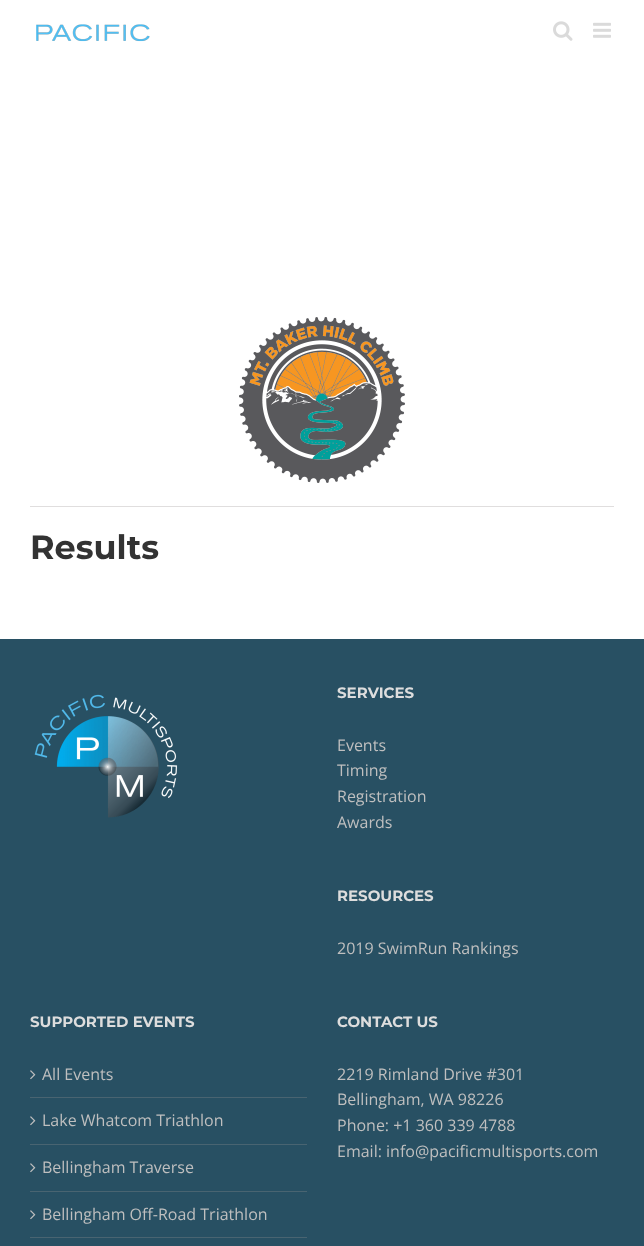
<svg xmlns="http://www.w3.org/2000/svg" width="644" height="1246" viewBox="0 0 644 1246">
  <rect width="100%" height="100%" fill="#fff"/>
  <image x="36" y="24" width="114" height="18" href="img/1.png"/>
  <image x="553" y="21" width="20" height="20" href="img/2.png"/>
  <image x="593" y="22" width="18" height="16" href="img/3.png"/>
  <image x="239" y="317" width="166" height="166" href="img/4.png"/>
  <path d="M30 506h584v1H30z" fill="#e0dede"/>
  <path d="M0 639h644v607H0z" fill="#285063"/>
  <image x="34" y="694" width="144" height="124" href="img/5.png"/>
  <path d="M30 1097h277v1H30z" fill="#496471"/>
  <image x="30" y="1070" width="6" height="10" href="img/6.png"/>
  <path d="M30 1144h277v1H30z" fill="#496471"/>
  <image x="30" y="1116" width="6" height="10" href="img/6.png"/>
  <path d="M30 1191h277v1H30z" fill="#496471"/>
  <image x="30" y="1163" width="6" height="10" href="img/6.png"/>
  <path d="M30 1237h277v1H30z" fill="#496471"/>
  <image x="30" y="1210" width="6" height="10" href="img/6.png"/>
  <text x="30" y="559" font-family="Montserrat" font-size="33.5" font-weight="100" fill="#333">Results</text>
  <text x="337" y="698" font-family="Montserrat" font-size="15" font-weight="100" fill="#ddd">SERVICES</text>
  <g font-family="Open Sans" font-size="16" fill="#bfbfbf">
    <text x="337" y="751">Events</text>
    <text x="337" y="776">Timing</text>
    <text x="337" y="802">Registration</text>
    <text x="337" y="828">Awards</text>
  </g>
  <text x="337" y="901" font-family="Montserrat" font-size="15" font-weight="100" fill="#ddd">RESOURCES</text>
  <text x="337" y="954" font-family="Open Sans" font-size="16" fill="#bfbfbf">2019 SwimRun Rankings</text>
  <text x="30" y="1027" font-family="Montserrat" font-size="15" font-weight="100" fill="#ddd">SUPPORTED EVENTS</text>
  <g font-family="Open Sans" font-size="16" fill="#bfbfbf">
    <text x="42" y="1080">All Events</text>
    <text x="42" y="1126">Lake Whatcom Triathlon</text>
    <text x="42" y="1173">Bellingham Traverse</text>
    <text x="42" y="1220">Bellingham Off-Road Triathlon</text>
  </g>
  <text x="337" y="1027" font-family="Montserrat" font-size="15" font-weight="100" fill="#ddd">CONTACT US</text>
  <g font-family="Open Sans" font-size="16" fill="#bfbfbf">
    <text x="337" y="1080">2219 Rimland Drive #301</text>
    <text x="337" y="1105">Bellingham, WA 98226</text>
    <text x="337" y="1131">Phone: +1 360 339 4788</text>
    <text x="337" y="1157">Email: info@pacificmultisports.com</text>
  </g>
</svg>
